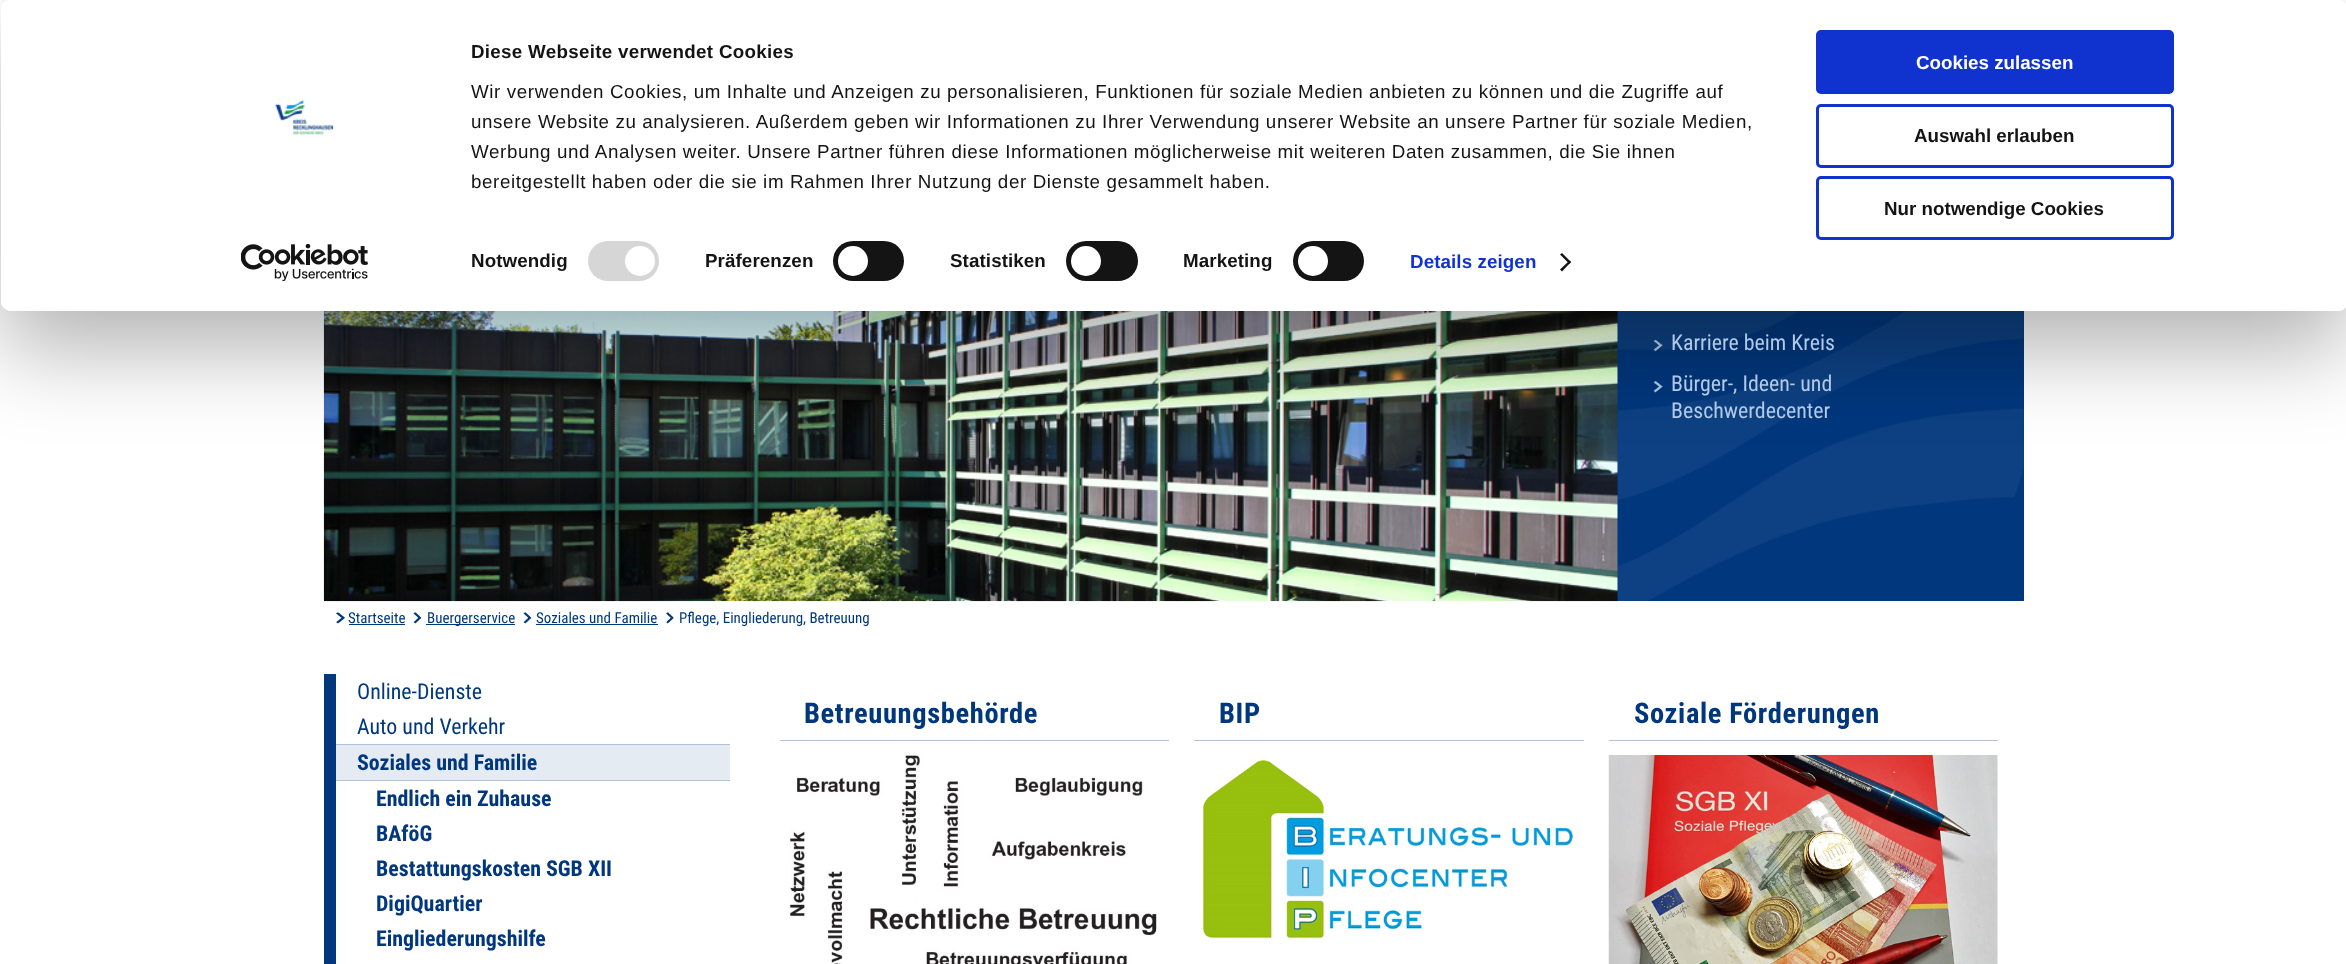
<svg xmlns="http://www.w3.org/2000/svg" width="2346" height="964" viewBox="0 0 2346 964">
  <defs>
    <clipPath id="clip1"><path d="M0 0H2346V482H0ZM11 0H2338C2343.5 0 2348 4.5 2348 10V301C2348 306.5 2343.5 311 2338 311H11C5.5 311 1 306.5 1 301V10C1 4.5 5.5 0 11 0Z" clip-rule="evenodd"/></clipPath>
  </defs>
  <rect width="100%" height="100%" fill="#fff"/>
  <path d="M1617 311h407v290H1617z" fill="#00377d"/>
  <image x="1617" y="311" width="407" height="290" href="img/3.png"/>
  <image x="323" y="311" width="1295" height="291" href="img/4.png"/>
  <image x="1653" y="340" width="10" height="12" href="img/5.png"/>
  <image x="1653" y="381" width="10" height="12" href="img/6.png"/>
  <g clip-path="url(#clip1)">
    <rect x="1" y="38" width="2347" height="311" rx="10" fill="#0000004d" filter="blur(44px)"/>
  </g>
  <rect x="1" width="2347" height="311" rx="10" fill="#fff"/>
  <image x="275" y="100" width="59" height="35" href="img/1.png"/>
  <image x="241" y="244" width="127" height="37" href="img/2.png"/>
  <rect x="588" y="241" width="71" height="40" rx="20" fill="#d6d6d6"/>
  <circle cx="640" cy="261" r="15" fill="#fff"/>
  <rect x="833" y="241" width="71" height="40" rx="20" fill="#141414"/>
  <circle cx="853" cy="261" r="15" fill="#fff"/>
  <rect x="1066" y="241" width="72" height="40" rx="20" fill="#141414"/>
  <circle cx="1086" cy="261" r="15" fill="#fff"/>
  <rect x="1293" y="241" width="71" height="40" rx="20" fill="#141414"/>
  <circle cx="1313" cy="261" r="15" fill="#fff"/>
  <path d="M1562 253L1571 262L1569.5 264L1560 254.5Z" fill="#141414"/>
  <path d="M1569.5 260.5L1571 262L1562 271.5L1560 269.5Z" fill="#141414"/>
  <rect x="1817.5" y="31.5" width="355" height="61" rx="3.5" fill="#1032cf" stroke="#1032cf" stroke-width="3"/>
  <rect x="1817.5" y="105.5" width="355" height="61" rx="3.5" fill="none" stroke="#1032cf" stroke-width="3"/>
  <rect x="1817.5" y="177.5" width="355" height="61" rx="3.5" fill="none" stroke="#1032cf" stroke-width="3"/>
  <image x="336" y="612" width="9" height="12" href="img/7.png"/>
  <path d="M349 624h56v1H349z" fill="#00377d"/>
  <image x="413" y="612" width="9" height="12" href="img/8.png"/>
  <path d="M426 624h89v1H426z" fill="#00377d"/>
  <image x="523" y="612" width="9" height="12" href="img/9.png"/>
  <path d="M536 624h122v1H536z" fill="#00377d"/>
  <image x="666" y="612" width="8" height="12" href="img/10.png"/>
  <path d="M324 674h12v290H324z" fill="#00377d"/>
  <path d="M336 745h394v35H336z" fill="#e5ebf2"/>
  <path d="M336 744h394v1H336z" fill="#b2c3d8"/>
  <path d="M336 780h394v1H336z" fill="#b2c3d8"/>
  <path d="M780 740h389v1H780z" fill="#b2c3d8"/>
  <image x="789" y="755" width="368" height="209" href="img/11.png"/>
  <path d="M1194 740h390v1H1194z" fill="#b2c3d8"/>
  <image x="1203" y="760" width="371" height="179" href="img/12.png"/>
  <path d="M1609 740h389v1H1609z" fill="#b2c3d8"/>
  <image x="1608" y="755" width="390" height="209" href="img/13.png"/>
  <text x="471" y="58" font-family="Liberation Sans" font-size="18.75" font-weight="bold" letter-spacing="0.3" fill="#141414">Diese Webseite verwendet Cookies</text>
  <g font-family="Liberation Sans" font-size="18.75" letter-spacing="0.62" fill="#141414">
    <text x="471" y="98">Wir verwenden Cookies, um Inhalte und Anzeigen zu personalisieren, Funktionen für soziale Medien anbieten zu können und die Zugriffe auf</text>
    <text x="471" y="128">unsere Website zu analysieren. Außerdem geben wir Informationen zu Ihrer Verwendung unserer Website an unsere Partner für soziale Medien,</text>
    <text x="471" y="158">Werbung und Analysen weiter. Unsere Partner führen diese Informationen möglicherweise mit weiteren Daten zusammen, die Sie ihnen</text>
    <text x="471" y="188">bereitgestellt haben oder die sie im Rahmen Ihrer Nutzung der Dienste gesammelt haben.</text>
  </g>
  <g font-family="Liberation Sans" font-size="18.75" font-weight="bold" letter-spacing="0.1" fill="#141414">
    <text x="471" y="267">Notwendig</text>
    <text x="705" y="267">Präferenzen</text>
    <text x="950" y="267">Statistiken</text>
    <text x="1183" y="267">Marketing</text>
  </g>
  <text x="1410" y="268" font-family="Liberation Sans" font-size="18.75" font-weight="bold" letter-spacing="0.1" fill="#1032cf">Details zeigen</text>
  <text x="1916" y="69" font-family="Liberation Sans" font-size="18.75" font-weight="bold" fill="#fff">Cookies zulassen</text>
  <g font-family="Liberation Sans" font-size="18.75" font-weight="bold" fill="#141414">
    <text x="1914" y="142">Auswahl erlauben</text>
    <text x="1884" y="215">Nur notwendige Cookies</text>
  </g>
  <g font-family="Roboto Condensed" font-size="21.9" fill="#b2cae8">
    <text x="1671" y="350">Karriere beim Kreis</text>
    <text x="1671" y="391">Bürger-, Ideen- und</text>
    <text x="1671" y="418">Beschwerdecenter</text>
  </g>
  <g font-family="Roboto Condensed" font-size="15" fill="#00377d">
    <text x="348" y="623">Startseite</text>
    <text x="427" y="623">Buergerservice</text>
    <text x="536" y="623">Soziales und Familie</text>
    <text x="679" y="623">Pflege, Eingliederung, Betreuung</text>
  </g>
  <g font-family="Roboto Condensed" font-size="21.9" fill="#00377d">
    <text x="357" y="699">Online-Dienste</text>
    <text x="357" y="734">Auto und Verkehr</text>
  </g>
  <g font-family="Roboto Condensed" font-size="21.9" font-weight="bold" fill="#00377d">
    <text x="357" y="770">Soziales und Familie</text>
    <text x="376" y="806">Endlich ein Zuhause</text>
    <text x="376" y="841">BAföG</text>
    <text x="376" y="876">Bestattungskosten SGB XII</text>
    <text x="376" y="911">DigiQuartier</text>
    <text x="376" y="946">Eingliederungshilfe</text>
  </g>
  <g font-family="Roboto Condensed" font-size="28.5" font-weight="bold" letter-spacing="0.62" fill="#00377d">
    <text x="804" y="723">Betreuungsbehörde</text>
    <text x="1219" y="723">BIP</text>
    <text x="1634" y="723">Soziale Förderungen</text>
  </g>
</svg>
